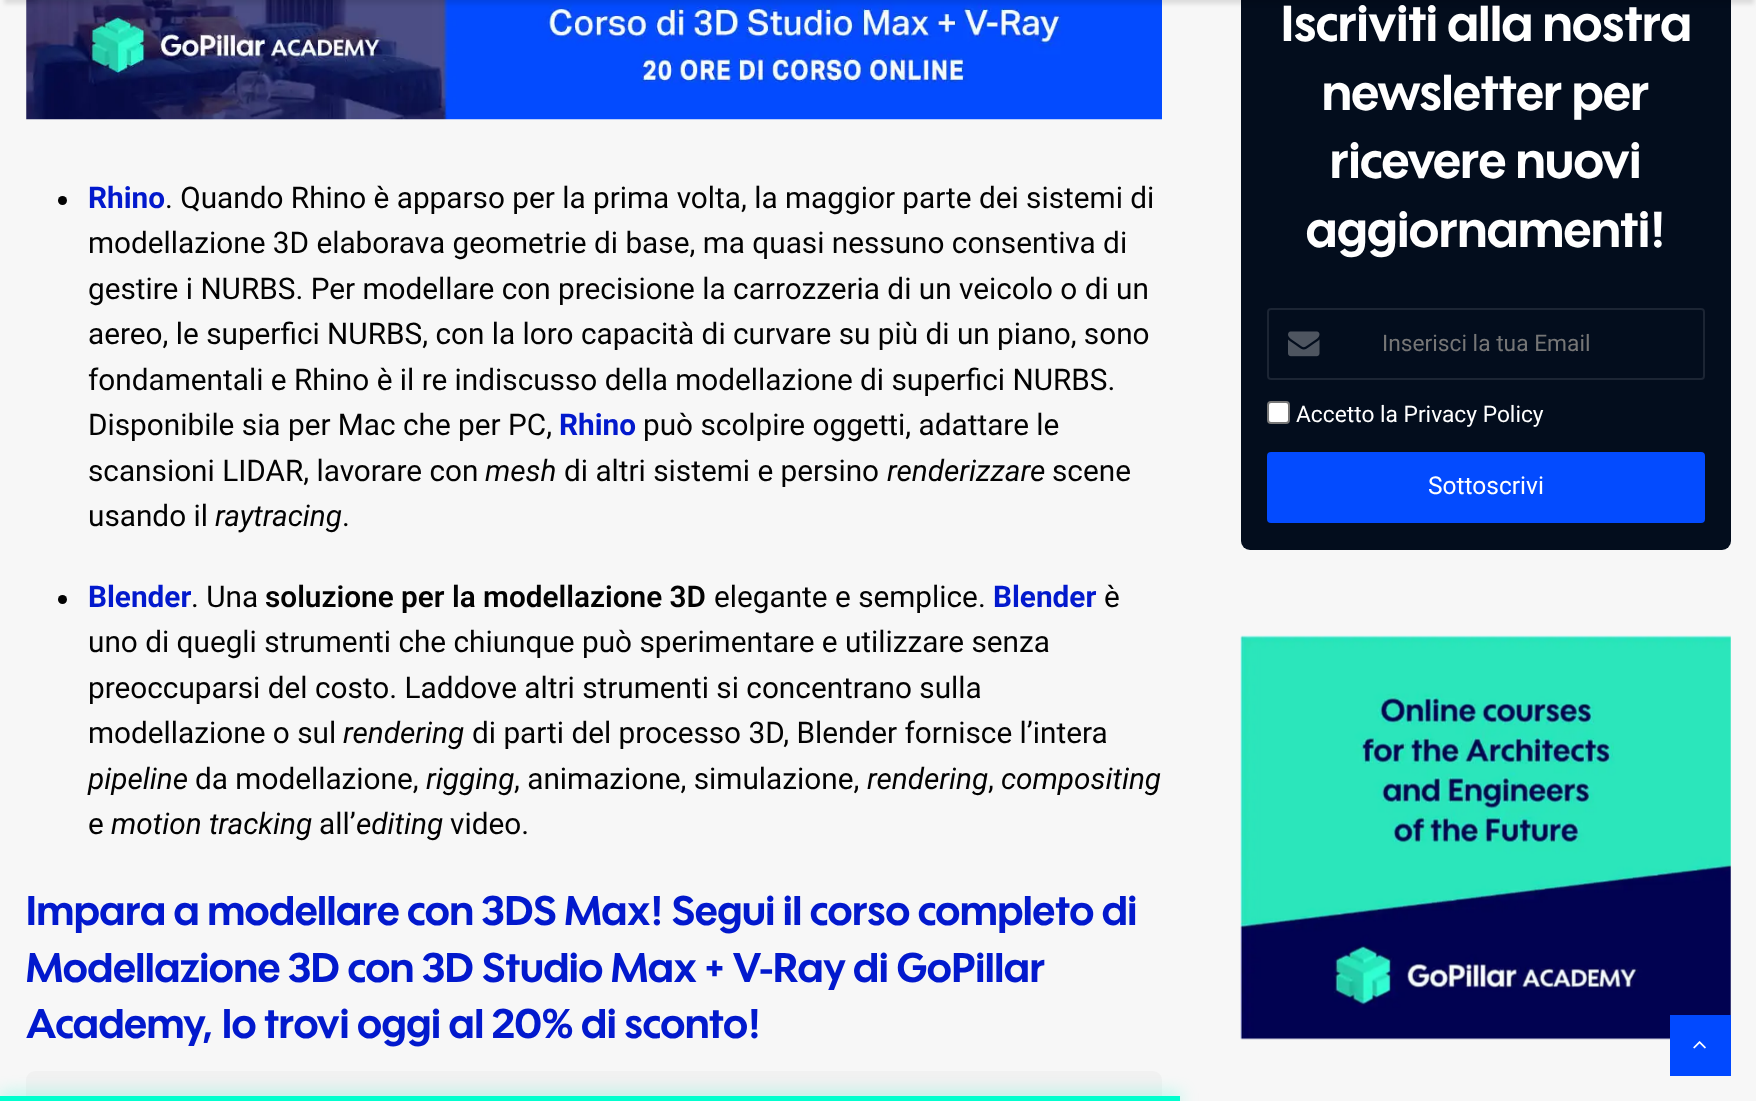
<svg xmlns="http://www.w3.org/2000/svg" width="1756" height="1101" viewBox="0 0 1756 1101">
  <rect width="100%" height="100%" fill="#f7f7f7"/>
  <image x="26" y="0" width="1136" height="120" href="img/1.png"/>
  <rect x="1241" y="-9" width="490" height="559" rx="9" fill="#030d1d"/>
  <path d="M4 -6h1750v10H4z" fill="#0000001a" filter="blur(2px)"/>
  <circle cx="62.5" cy="200.5" r="4.5" fill="#020202"/>
  <circle cx="62.5" cy="599.5" r="4.5" fill="#020202"/>
  <rect x="26" y="1071" width="1136" height="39" rx="9" fill="#f1f1f1"/>
  <rect x="1268" y="309" width="436" height="70" rx="3" fill="none" stroke="#1c2534" stroke-width="2"/>
  <image x="1288" y="331" width="32" height="26" href="img/2.png"/>
  <rect x="1268" y="402" width="21" height="21" rx="3" fill="#fff" stroke="#777" stroke-width="2"/>
  <rect x="1267" y="452" width="438" height="71" rx="4" fill="#034bff"/>
  <image x="1240" y="635" width="491" height="405" href="img/3.png"/>
  <path d="M1670 1015h61v61H1670z" fill="#0149ff"/>
  <image x="1693" y="1041" width="13" height="8" href="img/4.png"/>
  <path d="M0 1096h1180v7H0z" fill="#00fccc85" filter="blur(9px)"/>
  <path d="M0 1096h1180v5H0z" fill="#00ffce"/>
  <text x="88" y="208" font-family="Roboto" font-size="29.75" font-weight="bold" fill="#0219cd">Rhino</text>
  <g font-family="Roboto" font-size="29.75" fill="#020202">
    <text x="165" y="208">. Quando Rhino è apparso per la prima volta, la maggior parte dei sistemi di</text>
    <text x="88" y="253">modellazione 3D elaborava geometrie di base, ma quasi nessuno consentiva di</text>
    <text x="88" y="299">gestire i NURBS. Per modellare con precisione la carrozzeria di un veicolo o di un</text>
    <text x="88" y="344">aereo, le superfici NURBS, con la loro capacità di curvare su più di un piano, sono</text>
    <text x="88" y="390">fondamentali e Rhino è il re indiscusso della modellazione di superfici NURBS.</text>
    <text x="88" y="435">Disponibile sia per Mac che per PC,</text>
  </g>
  <text x="559" y="435" font-family="Roboto" font-size="29.75" font-weight="bold" fill="#0219cd">Rhino</text>
  <g font-family="Roboto" font-size="29.75" fill="#020202">
    <text x="643" y="435">può scolpire oggetti, adattare le</text>
    <text x="88" y="481">scansioni LIDAR, lavorare con</text>
  </g>
  <text x="485" y="481" font-family="Roboto" font-size="29.75" font-style="italic" fill="#020202">mesh</text>
  <text x="564" y="481" font-family="Roboto" font-size="29.75" fill="#020202">di altri sistemi e persino</text>
  <text x="887" y="481" font-family="Roboto" font-size="29.75" font-style="italic" fill="#020202">renderizzare</text>
  <g font-family="Roboto" font-size="29.75" fill="#020202">
    <text x="1052" y="481">scene</text>
    <text x="88" y="526">usando il</text>
  </g>
  <text x="215" y="526" font-family="Roboto" font-size="29.75" font-style="italic" fill="#020202">raytracing</text>
  <text x="342" y="526" font-family="Roboto" font-size="29.75" fill="#020202">.</text>
  <text x="88" y="607" font-family="Roboto" font-size="29.75" font-weight="bold" fill="#0219cd">Blender</text>
  <text x="191" y="607" font-family="Roboto" font-size="29.75" fill="#020202">. Una</text>
  <text x="265" y="607" font-family="Roboto" font-size="29.75" font-weight="600" fill="#020202">soluzione per la modellazione 3D</text>
  <text x="714" y="607" font-family="Roboto" font-size="29.75" fill="#020202">elegante e semplice.</text>
  <text x="993" y="607" font-family="Roboto" font-size="29.75" font-weight="bold" fill="#0219cd">Blender</text>
  <g font-family="Roboto" font-size="29.75" fill="#020202">
    <text x="1104" y="607">è</text>
    <text x="88" y="652">uno di quegli strumenti che chiunque può sperimentare e utilizzare senza</text>
    <text x="88" y="698">preoccuparsi del costo. Laddove altri strumenti si concentrano sulla</text>
    <text x="88" y="743">modellazione o sul</text>
  </g>
  <text x="343" y="743" font-family="Roboto" font-size="29.75" font-style="italic" fill="#020202">rendering</text>
  <text x="472" y="743" font-family="Roboto" font-size="29.75" fill="#020202">di parti del processo 3D, Blender fornisce l’intera</text>
  <text x="88" y="789" font-family="Roboto" font-size="29.75" font-style="italic" fill="#020202">pipeline</text>
  <text x="195" y="789" font-family="Roboto" font-size="29.75" fill="#020202">da modellazione,</text>
  <text x="426" y="789" font-family="Roboto" font-size="29.75" font-style="italic" fill="#020202">rigging</text>
  <text x="514" y="789" font-family="Roboto" font-size="29.75" fill="#020202">, animazione, simulazione,</text>
  <text x="867" y="789" font-family="Roboto" font-size="29.75" font-style="italic" fill="#020202">rendering</text>
  <text x="988" y="789" font-family="Roboto" font-size="29.75" fill="#020202">,</text>
  <text x="1001" y="789" font-family="Roboto" font-size="29.75" font-style="italic" fill="#020202">compositing</text>
  <text x="88" y="834" font-family="Roboto" font-size="29.75" fill="#020202">e</text>
  <text x="111" y="834" font-family="Roboto" font-size="29.75" font-style="italic" fill="#020202">motion tracking</text>
  <text x="319" y="834" font-family="Roboto" font-size="29.75" fill="#020202">all’</text>
  <text x="356" y="834" font-family="Roboto" font-size="29.75" font-style="italic" fill="#020202">editing</text>
  <text x="450" y="834" font-family="Roboto" font-size="29.75" fill="#020202">video.</text>
  <g font-family="'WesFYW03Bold'" font-size="40.25" font-weight="bold" fill="#0219cd">
    <text x="26" y="925">Impara a modellare con 3DS Max! Segui il corso completo di</text>
    <text x="26" y="982">Modellazione 3D con 3D Studio Max + V-Ray di GoPillar</text>
    <text x="26" y="1038">Academy, lo trovi oggi al 20% di sconto!</text>
  </g>
  <g font-family="'WesFYW03Bold'" font-size="49" font-weight="bold" fill="#fff">
    <text x="1281" y="41">Iscriviti alla nostra</text>
    <text x="1322" y="110">newsletter per</text>
    <text x="1330" y="178">ricevere nuovi</text>
    <text x="1306" y="247">aggiornamenti!</text>
  </g>
  <text x="1382" y="351" font-family="Roboto" font-size="22.75" fill="#767676">Inserisci la tua Email</text>
  <text x="1296" y="422" font-family="Roboto" font-size="22.75" fill="#fff">Accetto la Privacy Policy</text>
  <text x="1428" y="494" font-family="Roboto" font-size="24.5" fill="#fff">Sottoscrivi</text>
</svg>
